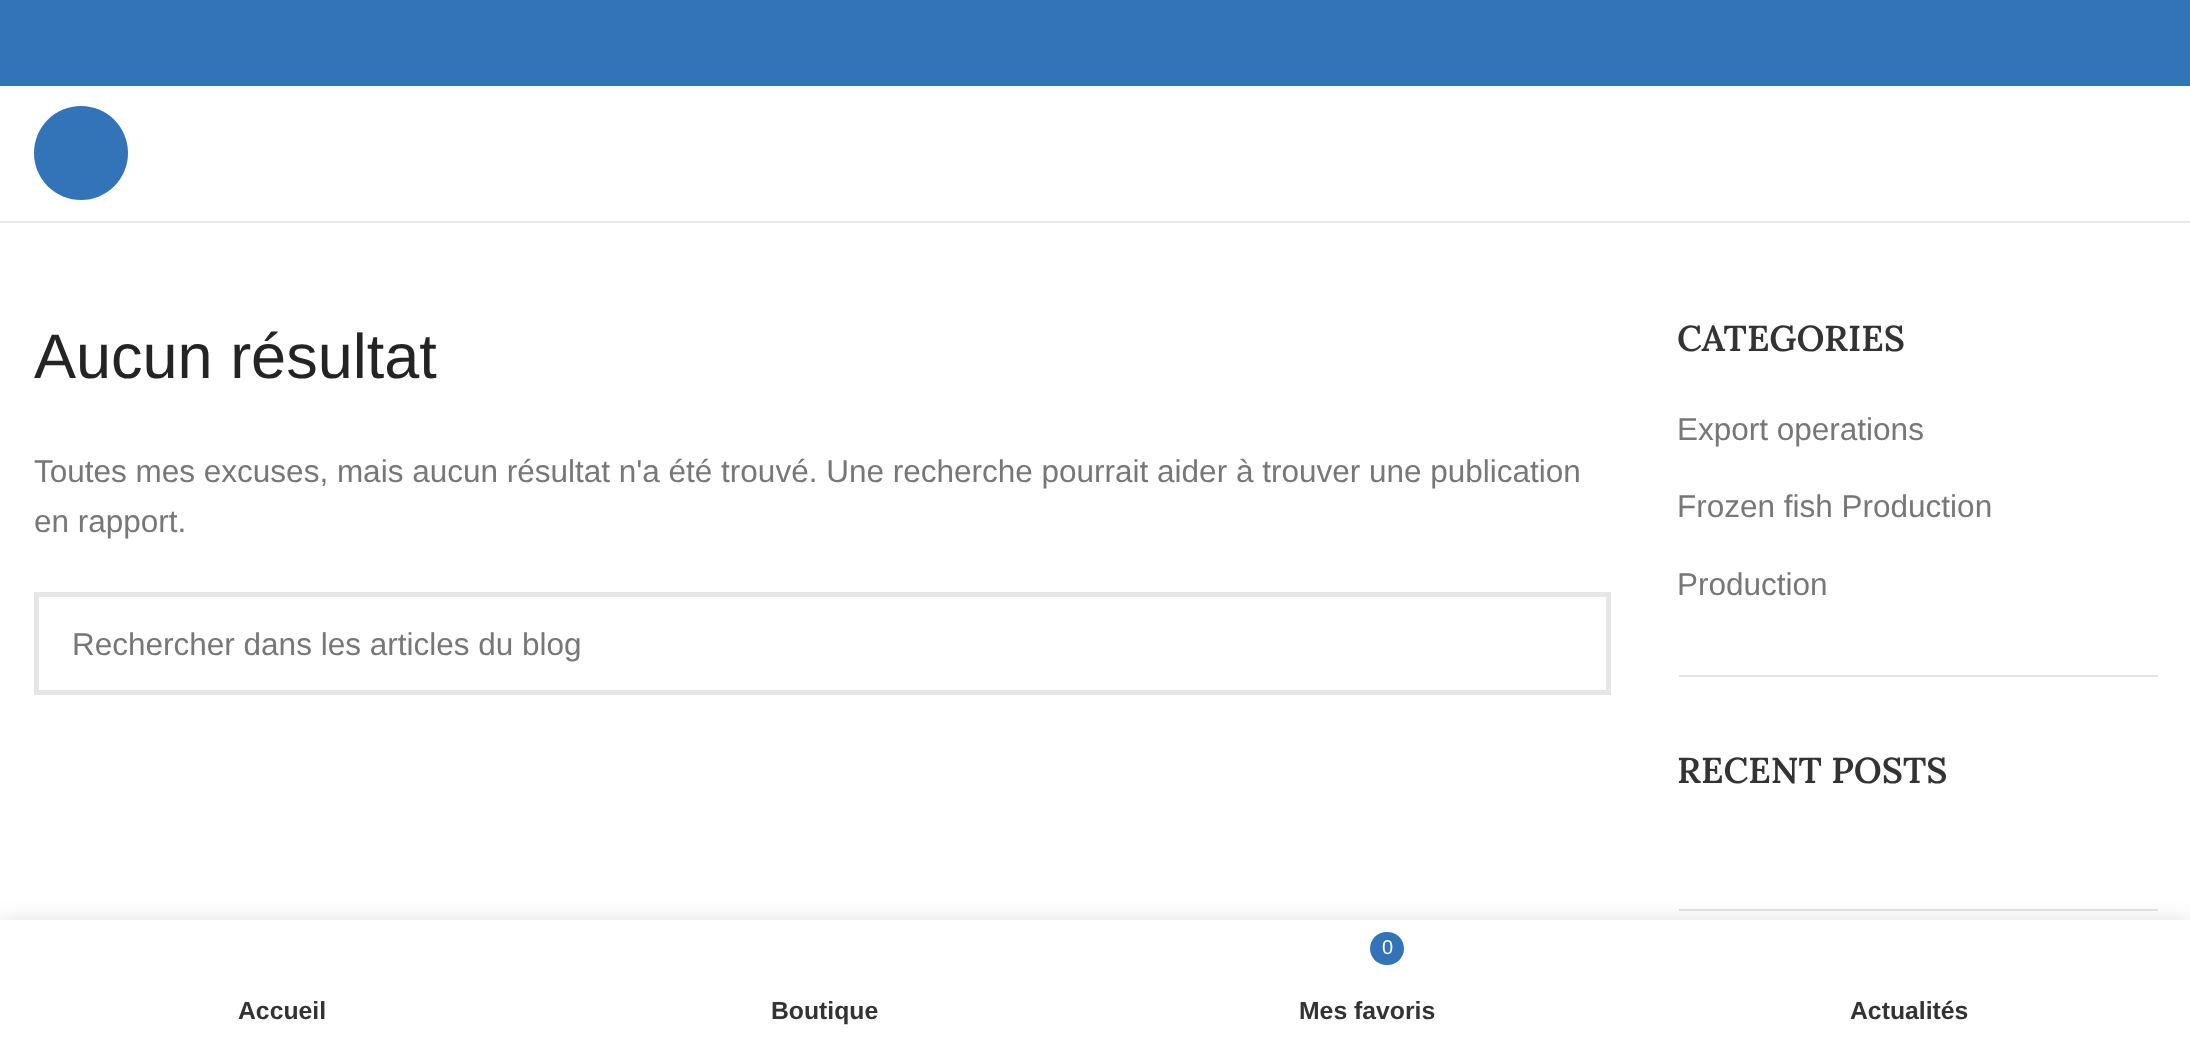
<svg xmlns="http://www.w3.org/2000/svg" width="2190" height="1044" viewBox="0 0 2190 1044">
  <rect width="100%" height="100%" fill="#fff"/>
  <path d="M0 0h2190v86H0z" fill="#3373b8"/>
  <path d="M0 221h2190v2H0z" fill="#e8e8e8"/>
  <circle cx="81" cy="153" r="47" fill="#3373b8"/>
  <path d="M36.5 594.5h1572v98H36.5z" fill="none" stroke="#e6e6e6" stroke-width="5"/>
  <path d="M1679 675h479v2H1679z" fill="#e4e4e4"/>
  <path d="M1679 909h479v2H1679z" fill="#e4e4e4"/>
  <path d="M0 920h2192v124H0z" fill="#0000001f" filter="blur(10px)"/>
  <path d="M0 920h2190v124H0z" fill="#fff"/>
  <rect x="1370" y="932" width="34" height="33" rx="16.5" fill="#3373b8"/>
  <text x="34" y="378" font-family="Liberation Sans" font-size="63" fill="#242424">Aucun résultat</text>
  <g font-family="Liberation Sans" font-size="31.5" fill="#777">
    <text x="34" y="482">Toutes mes excuses, mais aucun résultat n'a été trouvé. Une recherche pourrait aider à trouver une publication</text>
    <text x="34" y="532">en rapport.</text>
    <text x="72" y="655">Rechercher dans les articles du blog</text>
  </g>
  <text x="1677" y="351" font-family="Lora" font-size="36" font-weight="600" fill="#333">CATEGORIES</text>
  <g font-family="Liberation Sans" font-size="31.5" fill="#777">
    <text x="1677" y="440">Export operations</text>
    <text x="1677" y="517">Frozen fish Production</text>
    <text x="1677" y="595">Production</text>
  </g>
  <text x="1677" y="783" font-family="Lora" font-size="36" font-weight="600" fill="#333">RECENT POSTS</text>
  <g font-family="Liberation Sans" font-size="24.75" font-weight="bold" fill="#333">
    <text x="238" y="1019">Accueil</text>
    <text x="771" y="1019">Boutique</text>
  </g>
  <text x="1382" y="954" font-family="Liberation Sans" font-size="20" fill="#fff">0</text>
  <g font-family="Liberation Sans" font-size="24.75" font-weight="bold" fill="#333">
    <text x="1299" y="1019">Mes favoris</text>
    <text x="1850" y="1019">Actualités</text>
  </g>
</svg>
